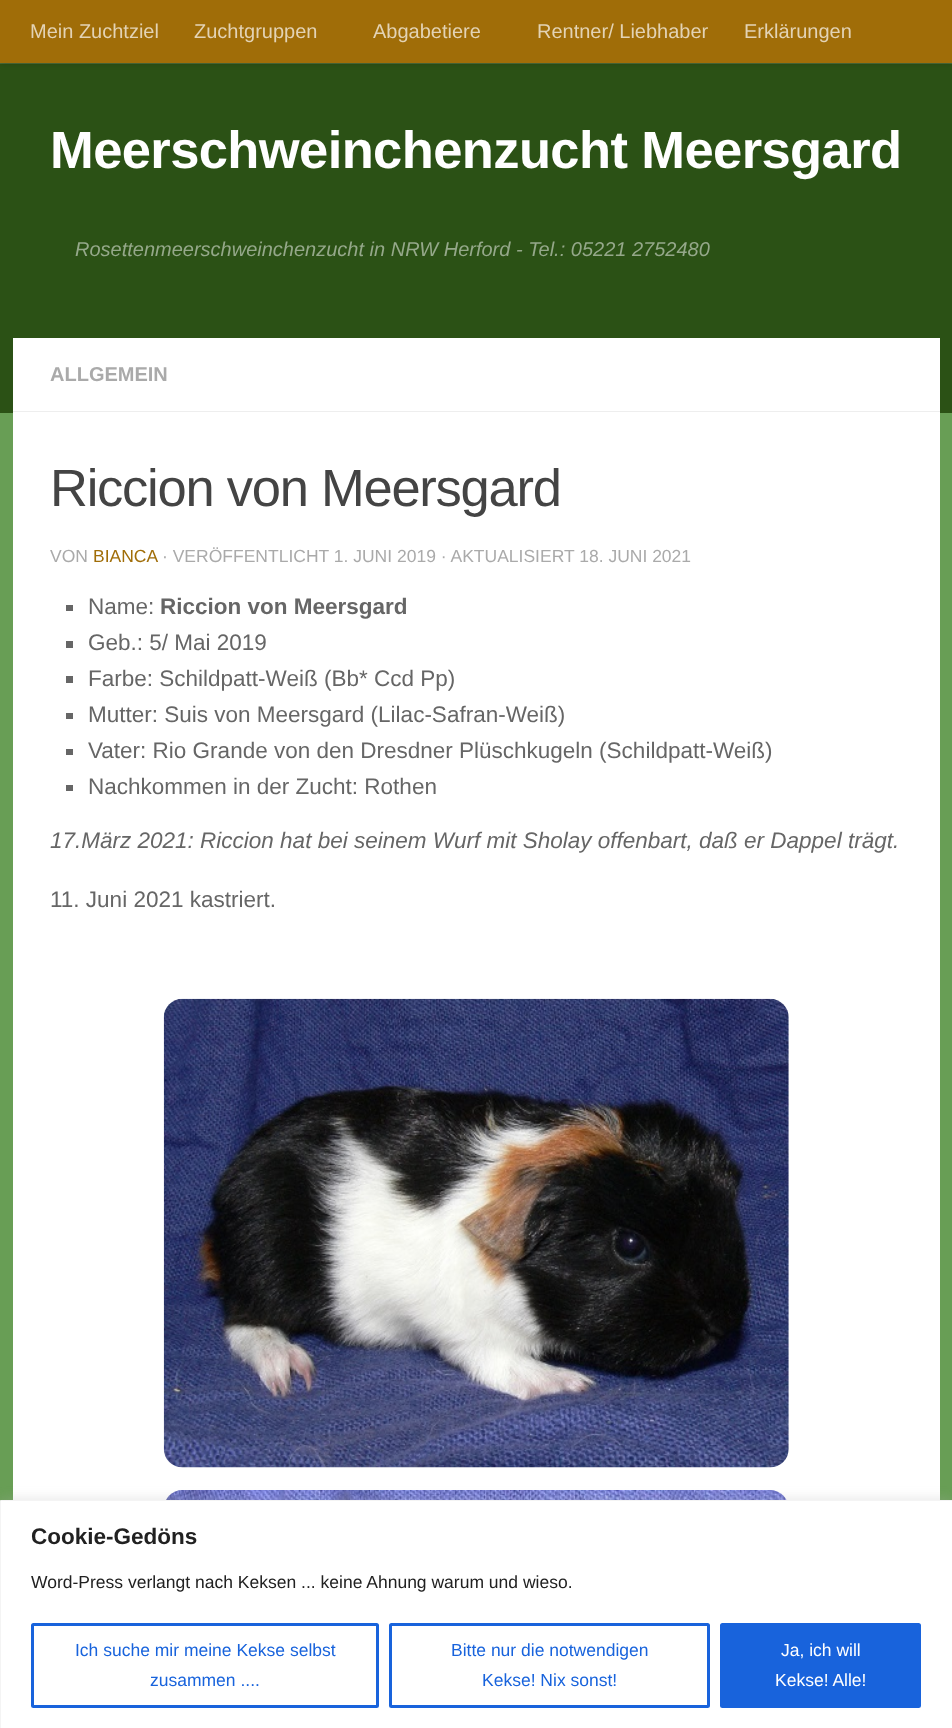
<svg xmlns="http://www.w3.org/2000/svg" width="952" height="1728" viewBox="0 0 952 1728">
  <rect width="100%" height="100%" fill="#689e55"/>
  <path d="M0 64h952v349H0z" fill="#2b5115"/>
  <path d="M0 62V64H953V1H952V62Z" fill="#4b6b38"/>
  <path d="M0 0h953v63H0z" fill="#00000033" filter="blur(3px)"/>
  <path d="M0 0h952v63H0z" fill="#a06d08"/>
  <path d="M13 338h927v1162H13z" fill="#fff"/>
  <path d="M13 411h927v1H13z" fill="#eee"/>
  <path d="M66 605h7v6H66z" fill="#666"/>
  <path d="M66 641h7v7H66z" fill="#666"/>
  <path d="M66 676h7v7H66z" fill="#666"/>
  <path d="M66 713h7v6H66z" fill="#666"/>
  <path d="M66 749h7v6H66z" fill="#666"/>
  <path d="M66 785h7v6H66z" fill="#666"/>
  <image x="163" y="998" width="626" height="470" href="img/1.png"/>
  <image x="166" y="1490" width="621" height="10" href="img/2.png"/>
  <path d="M0 1499h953v229H0z" fill="#acabab4d" filter="blur(6px)"/>
  <path d="M0.5 1500.5h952v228H0.5z" fill="#fff" stroke="#f4f4f4"/>
  <rect x="32.5" y="1624.5" width="345" height="82" rx="1" fill="none" stroke="#1863dc" stroke-width="3"/>
  <rect x="390.5" y="1624.5" width="318" height="82" rx="1" fill="none" stroke="#1863dc" stroke-width="3"/>
  <rect x="721.5" y="1624.5" width="198" height="82" rx="1" fill="#1863dc" stroke="#1863dc" stroke-width="3"/>
  <g font-family="Liberation Sans" font-size="20" fill="#e3d3b5">
    <text x="30" y="38">Mein Zuchtziel</text>
    <text x="194" y="38">Zuchtgruppen</text>
    <text x="373" y="38">Abgabetiere</text>
    <text x="537" y="38">Rentner/ Liebhaber</text>
    <text x="744" y="38">Erklärungen</text>
  </g>
  <text x="50" y="168" font-family="Liberation Sans" font-size="52.5" font-weight="bold" letter-spacing="-0.6" fill="#fff">Meerschweinchenzucht Meersgard</text>
  <text x="75" y="256" font-family="Liberation Sans" font-size="20" font-style="italic" fill="#95a88a">Rosettenmeerschweinchenzucht in NRW Herford - Tel.: 05221 2752480</text>
  <text x="50" y="381" font-family="Liberation Sans" font-size="20" font-weight="bold" fill="#aaa">ALLGEMEIN</text>
  <text x="50" y="506" font-family="Liberation Sans" font-size="52.5" letter-spacing="-1.25" fill="#444">Riccion von Meersgard</text>
  <text x="50" y="562" font-family="Liberation Sans" font-size="17.5" fill="#aaa">VON</text>
  <text x="93" y="562" font-family="Liberation Sans" font-size="17.5" fill="#a06d08">BIANCA</text>
  <text x="162" y="562" font-family="Liberation Sans" font-size="17.5" fill="#aaa">· VERÖFFENTLICHT 1. JUNI 2019 · AKTUALISIERT 18. JUNI 2021</text>
  <text x="88" y="614" font-family="Liberation Sans" font-size="22.5" fill="#666">Name:</text>
  <text x="160" y="614" font-family="Liberation Sans" font-size="22.5" font-weight="bold" fill="#666">Riccion von Meersgard</text>
  <g font-family="Liberation Sans" font-size="22.5" fill="#666">
    <text x="88" y="650">Geb.: 5/ Mai 2019</text>
    <text x="88" y="686">Farbe: Schildpatt-Weiß (Bb* Ccd Pp)</text>
    <text x="88" y="722">Mutter: Suis von Meersgard (Lilac-Safran-Weiß)</text>
    <text x="88" y="758">Vater: Rio Grande von den Dresdner Plüschkugeln (Schildpatt-Weiß)</text>
    <text x="88" y="794">Nachkommen in der Zucht: Rothen</text>
  </g>
  <text x="50" y="848" font-family="Liberation Sans" font-size="22.5" font-style="italic" fill="#666">17.März 2021: Riccion hat bei seinem Wurf mit Sholay offenbart, daß er Dappel trägt.</text>
  <text x="50" y="907" font-family="Liberation Sans" font-size="22.5" fill="#666">11. Juni 2021 kastriert.</text>
  <text x="31" y="1544" font-family="Liberation Sans" font-size="22.5" font-weight="bold" fill="#212121">Cookie-Gedöns</text>
  <text x="31" y="1588" font-family="Liberation Sans" font-size="17.5" fill="#212121">Word-Press verlangt nach Keksen ... keine Ahnung warum und wieso.</text>
  <g font-family="Liberation Sans" font-size="17.5" fill="#1863dc">
    <text x="75" y="1656">Ich suche mir meine Kekse selbst</text>
    <text x="150" y="1686">zusammen ....</text>
    <text x="451" y="1656">Bitte nur die notwendigen</text>
    <text x="482" y="1686">Kekse! Nix sonst!</text>
  </g>
  <g font-family="Liberation Sans" font-size="17.5" fill="#fff">
    <text x="781" y="1656">Ja, ich will</text>
    <text x="775" y="1686">Kekse! Alle!</text>
  </g>
</svg>
